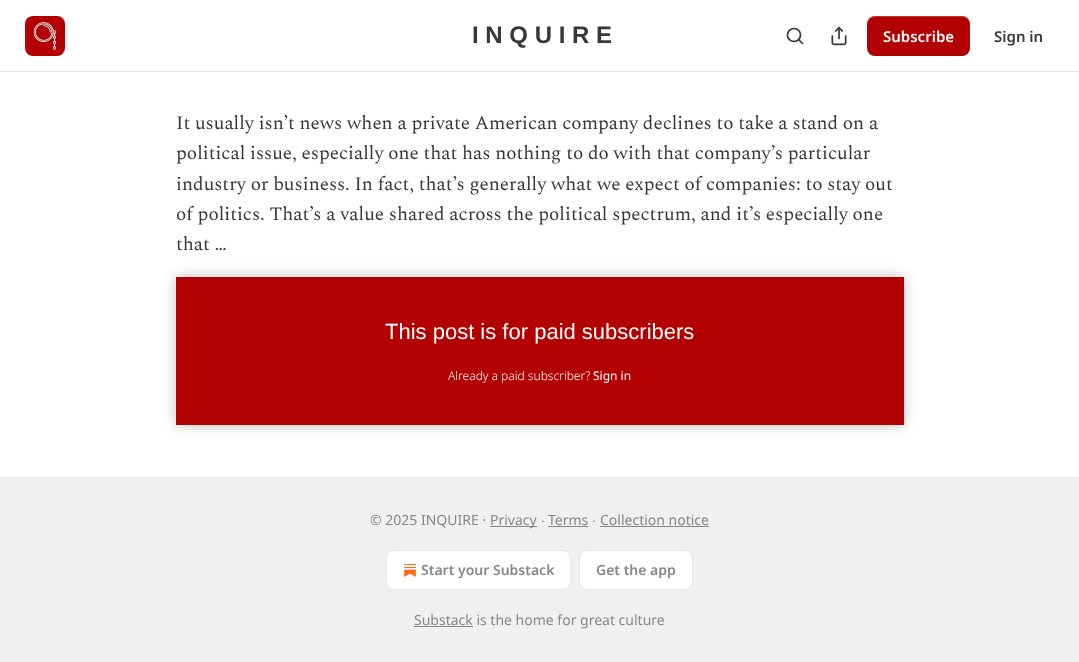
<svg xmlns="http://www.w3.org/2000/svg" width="1079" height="662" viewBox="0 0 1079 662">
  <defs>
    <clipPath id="clip1"><path d="M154 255H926V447H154ZM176 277H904V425H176Z" clip-rule="evenodd"/></clipPath>
  </defs>
  <rect width="100%" height="100%" fill="#fff"/>
  <path d="M0 71h1079v1H0z" fill="#e6e6e6"/>
  <image x="25" y="16" width="40" height="40" href="img/1.png"/>
  <circle cx="794" cy="35" r="6.5" fill="none" stroke="#363737" stroke-width="1.7"/>
  <path d="M802.5 43.5L799 40" fill="none" stroke="#363737" stroke-width="1.7" stroke-linecap="round" stroke-linejoin="round"/>
  <image x="831" y="26" width="16" height="20" href="img/2.png"/>
  <rect x="867" y="16" width="103" height="40" rx="8" fill="#b30000"/>
  <path d="M867 47C867 59 881 56 890 56H948C956 56 970 59 970 47C970 51 966 55 962 55H875C871 55 867 51 867 47Z" fill="#0000001a"/>
  <path d="M875 17H962C966 17 970 21 970 25C970 13 956 16 948 16H890C881 16 867 13 867 25C867 21 871 17 875 17Z" fill="#ffffff33"/>
  <path d="M176 277h728v148H176z" fill="#b30000"/>
  <g clip-path="url(#clip1)">
    <path d="M176 277h728v148H176z" fill="#00000040" filter="blur(7px)"/>
  </g>
  <path d="M0 478h1079v184H0z" fill="#f0f0f0"/>
  <path d="M0 477h1079v1H0z" fill="#e6e6e6"/>
  <path d="M490 526h47v1H490z" fill="#868787"/>
  <path d="M548 526h40v1H548z" fill="#868787"/>
  <path d="M600 526h109v1H600z" fill="#868787"/>
  <rect x="386.5" y="550.5" width="184" height="39" rx="7.5" fill="#fff" stroke="#e6e6e6"/>
  <image x="404" y="564" width="12" height="13" href="img/3.png"/>
  <rect x="579.5" y="550.5" width="113" height="39" rx="7.5" fill="#fff" stroke="#e6e6e6"/>
  <path d="M414 626h59v1H414z" fill="#868787"/>
  <text x="472" y="43" font-family="Liberation Sans" font-size="24" font-weight="bold" fill="#363737">I N Q U I R E</text>
  <text x="883" y="42" font-family="Noto Sans" font-size="15" font-weight="600" fill="#fff">Subscribe</text>
  <text x="994" y="42" font-family="Noto Sans" font-size="15" font-weight="600" fill="#363737">Sign in</text>
  <g font-family="Spectral" font-size="19" fill="#363737">
    <text x="176" y="129">It usually isn’t news when a private American company declines to take a stand on a</text>
    <text x="176" y="159">political issue, especially one that has nothing to do with that company’s particular</text>
    <text x="176" y="190">industry or business. In fact, that’s generally what we expect of companies: to stay out</text>
    <text x="176" y="220">of politics. That’s a value shared across the political spectrum, and it’s especially one</text>
    <text x="176" y="250">that …</text>
  </g>
  <text x="385" y="339" font-family="Liberation Sans" font-size="22" fill="#fff">This post is for paid subscribers</text>
  <text x="448" y="380" font-family="Noto Sans" font-size="12" font-weight="300" fill="#fff">Already a paid subscriber?</text>
  <text x="593" y="380" font-family="Noto Sans" font-size="12" fill="#fff">Sign in</text>
  <g font-family="Noto Sans" font-size="14" fill="#868787">
    <text x="370" y="525">© 2025 INQUIRE ·</text>
    <text x="490" y="525">Privacy</text>
  </g>
  <text x="541" y="525" font-family="Liberation Sans" font-size="14" fill="#868787">∙</text>
  <text x="548" y="525" font-family="Noto Sans" font-size="14" fill="#868787">Terms</text>
  <text x="592" y="525" font-family="Liberation Sans" font-size="14" fill="#868787">∙</text>
  <text x="600" y="525" font-family="Noto Sans" font-size="14" fill="#868787">Collection notice</text>
  <g font-family="Noto Sans" font-size="14" font-weight="600" fill="#868787">
    <text x="421" y="575">Start your Substack</text>
    <text x="596" y="575">Get the app</text>
  </g>
  <text x="414" y="625" font-family="Noto Sans" font-size="14" fill="#868787">Substack is the home for great culture</text>
</svg>
